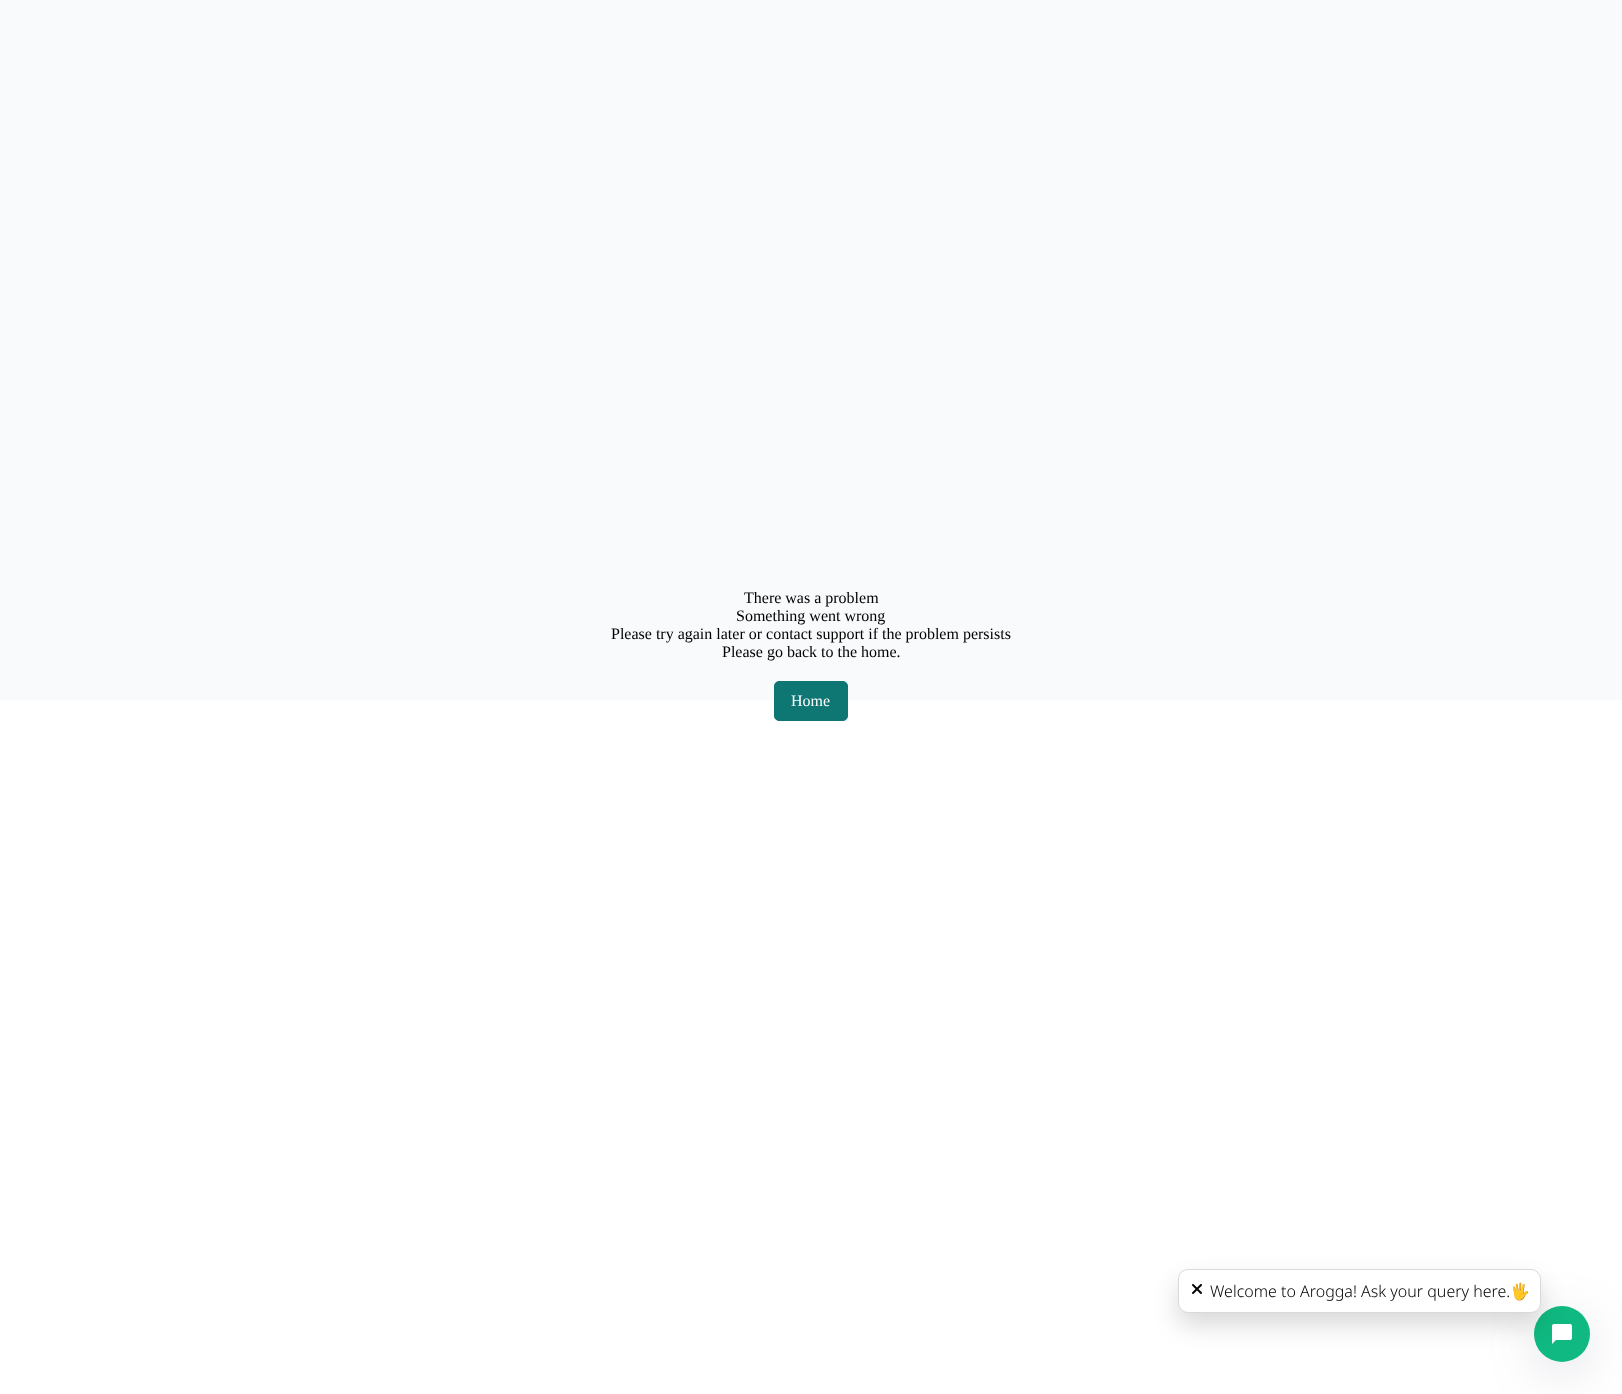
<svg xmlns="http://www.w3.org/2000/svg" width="1622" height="1394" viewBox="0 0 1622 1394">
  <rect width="100%" height="100%" fill="#fff"/>
  <path d="M0 0h1622v700H0z" fill="#f9fafb"/>
  <rect x="774.5" y="681.5" width="73" height="39" rx="4.5" fill="#0e7673" stroke="#0e7673"/>
  <rect x="1534" y="1318" width="56" height="56" rx="28" fill="#6d758d33" filter="blur(24px)"/>
  <circle cx="1562" cy="1334" r="28" fill="#10b981"/>
  <image x="1552" y="1324" width="20" height="20" href="img/2.png"/>
  <rect x="1178" y="1281" width="363" height="44" rx="10" fill="#00000026" filter="blur(12px)"/>
  <rect x="1178" y="1269" width="363" height="44" rx="10" fill="#fff"/>
  <rect x="1178.5" y="1269.5" width="362" height="43" rx="9.5" fill="none" stroke="#00000026"/>
  <image x="1192" y="1284" width="10" height="10" href="img/1.png"/>
  <g font-family="Liberation Serif" font-size="16" fill="#000">
    <text x="744" y="603">There was a problem</text>
    <text x="736" y="621">Something went wrong</text>
    <text x="611" y="639">Please try again later or contact support if the problem persists</text>
    <text x="722" y="657">Please go back to the home.</text>
  </g>
  <text x="791" y="706" font-family="Liberation Serif" font-size="16" fill="#fff">Home</text>
  <text x="1210" y="1297" font-family="Noto Sans" font-size="16" font-weight="300" fill="#000">Welcome to Arogga! Ask your query here.</text>
  <text x="1510" y="1297" font-family="Noto Color Emoji" font-size="16" fill="#000">🖐</text>
</svg>
